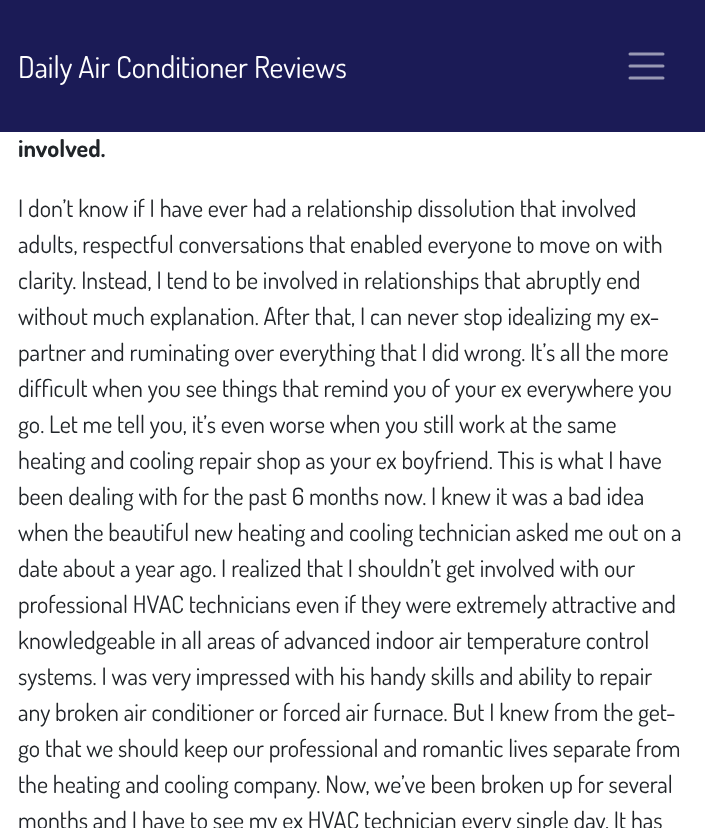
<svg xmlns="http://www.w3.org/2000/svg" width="705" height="828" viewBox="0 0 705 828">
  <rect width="100%" height="100%" fill="#fff"/>
  <path d="M0 0h705v132H0z" fill="#1b1b56"/>
  <path d="M630 54H663M630 66H663M630 78H663" fill="none" stroke="#9898b3" stroke-width="3" stroke-linecap="round"/>
  <text x="18" y="78" font-family="Dosis" font-size="30" fill="#fff">Daily Air Conditioner Reviews</text>
  <text x="18" y="157" font-family="Dosis" font-size="24" font-weight="bold" fill="#212529">involved.</text>
  <g font-family="Dosis" font-size="24" fill="#212529">
    <text x="18" y="217">I don’t know if I have ever had a relationship dissolution that involved</text>
    <text x="18" y="253">adults, respectful conversations that enabled everyone to move on with</text>
    <text x="18" y="289">clarity. Instead, I tend to be involved in relationships that abruptly end</text>
    <text x="18" y="325">without much explanation. After that, I can never stop idealizing my ex-</text>
    <text x="18" y="361">partner and ruminating over everything that I did wrong. It’s all the more</text>
    <text x="18" y="397">difficult when you see things that remind you of your ex everywhere you</text>
    <text x="18" y="433">go. Let me tell you, it’s even worse when you still work at the same</text>
    <text x="18" y="469">heating and cooling repair shop as your ex boyfriend. This is what I have</text>
    <text x="18" y="505">been dealing with for the past 6 months now. I knew it was a bad idea</text>
    <text x="18" y="541">when the beautiful new heating and cooling technician asked me out on a</text>
    <text x="18" y="577">date about a year ago. I realized that I shouldn’t get involved with our</text>
    <text x="18" y="613">professional HVAC technicians even if they were extremely attractive and</text>
    <text x="18" y="649">knowledgeable in all areas of advanced indoor air temperature control</text>
    <text x="18" y="685">systems. I was very impressed with his handy skills and ability to repair</text>
    <text x="18" y="721">any broken air conditioner or forced air furnace. But I knew from the get-</text>
    <text x="18" y="757">go that we should keep our professional and romantic lives separate from</text>
    <text x="18" y="793">the heating and cooling company. Now, we’ve been broken up for several</text>
    <text x="18" y="829">months and I have to see my ex HVAC technician every single day. It has</text>
  </g>
</svg>
